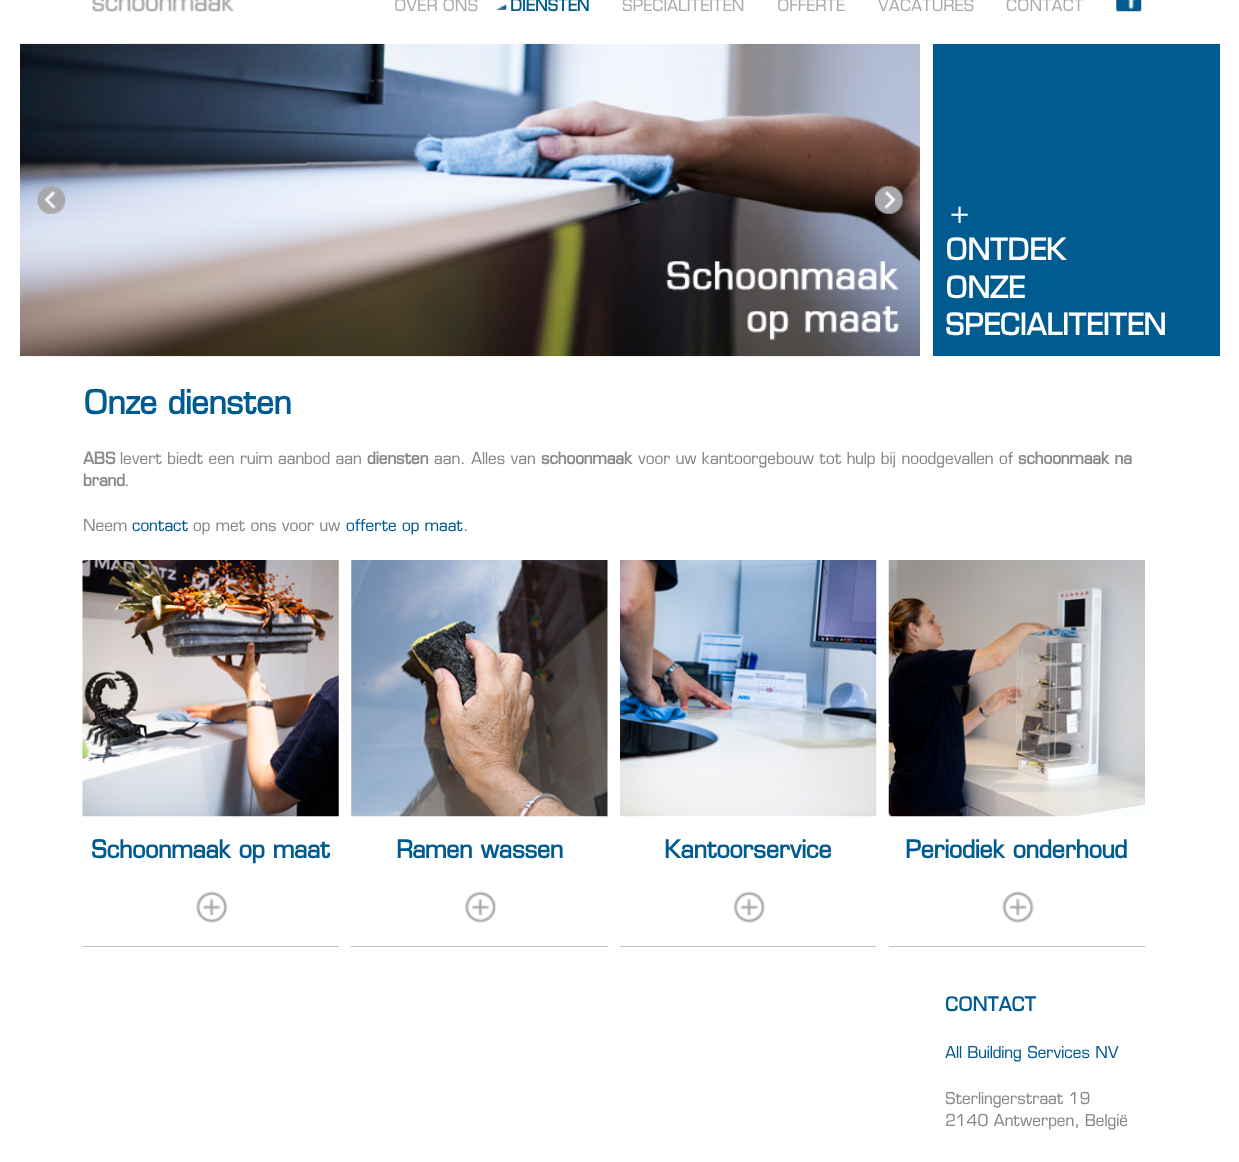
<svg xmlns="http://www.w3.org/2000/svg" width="1239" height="1162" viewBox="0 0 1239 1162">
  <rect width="100%" height="100%" fill="#fff"/>
  <image x="92" y="0" width="142" height="12" href="img/1.png"/>
  <image x="496" y="3" width="11" height="7" href="img/2.png"/>
  <image x="1116" y="0" width="26" height="12" href="img/3.png"/>
  <image x="20" y="43" width="900" height="314" href="img/4.png"/>
  <image x="37" y="186" width="28" height="28" href="img/5.png"/>
  <image x="875" y="186" width="28" height="28" href="img/6.png"/>
  <path d="M933 44h287v312H933z" fill="#005b90"/>
  <image x="82" y="560" width="257" height="257" href="img/7.png"/>
  <image x="196" y="891" width="32" height="32" href="img/8.png"/>
  <path d="M83 946h256v1H83z" fill="#bfbfbf"/>
  <image x="351" y="560" width="257" height="257" href="img/9.png"/>
  <image x="465" y="891" width="32" height="32" href="img/10.png"/>
  <path d="M351 946h257v1H351z" fill="#bfbfbf"/>
  <image x="620" y="560" width="257" height="257" href="img/11.png"/>
  <image x="733" y="891" width="32" height="32" href="img/12.png"/>
  <path d="M620 946h256v1H620z" fill="#bfbfbf"/>
  <image x="888" y="560" width="257" height="257" href="img/13.png"/>
  <image x="1002" y="891" width="32" height="32" href="img/14.png"/>
  <path d="M889 946h256v1H889z" fill="#bfbfbf"/>
  <text x="394" y="11" font-family="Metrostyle" font-size="16.2" fill="#aaa">OVER ONS</text>
  <text x="510" y="11" font-family="Metrostyle" font-size="16.2" font-weight="bold" fill="#005b90">DIENSTEN</text>
  <g font-family="Metrostyle" font-size="16.2" fill="#aaa">
    <text x="622" y="11">SPECIALITEITEN</text>
    <text x="777" y="11">OFFERTE</text>
    <text x="878" y="11">VACATURES</text>
    <text x="1006" y="11">CONTACT</text>
  </g>
  <text x="945" y="223" font-family="Metrostyle" font-size="29.25" fill="#fff">+</text>
  <g font-family="Metrostyle" font-size="29.25" font-weight="bold" fill="#fff">
    <text x="945" y="260">ONTDEK</text>
    <text x="945" y="298">ONZE</text>
    <text x="945" y="335">SPECIALITEITEN</text>
  </g>
  <text x="83" y="414" font-family="Metrostyle" font-size="32.5" font-weight="bold" fill="#005b90">Onze diensten</text>
  <text x="83" y="464" font-family="Metrostyle" font-size="16.2" font-weight="bold" fill="#888">ABS</text>
  <text x="120" y="464" font-family="Metrostyle" font-size="16.2" fill="#888">levert biedt een ruim aanbod aan</text>
  <text x="367" y="464" font-family="Metrostyle" font-size="16.2" font-weight="bold" fill="#888">diensten</text>
  <text x="434" y="464" font-family="Metrostyle" font-size="16.2" fill="#888">aan. Alles van</text>
  <text x="541" y="464" font-family="Metrostyle" font-size="16.2" font-weight="bold" fill="#888">schoonmaak</text>
  <text x="638" y="464" font-family="Metrostyle" font-size="16.2" fill="#888">voor uw kantoorgebouw tot hulp bij noodgevallen of</text>
  <g font-family="Metrostyle" font-size="16.2" font-weight="bold" fill="#888">
    <text x="1018" y="464">schoonmaak na</text>
    <text x="83" y="486">brand</text>
  </g>
  <g font-family="Metrostyle" font-size="16.2" fill="#888">
    <text x="124" y="486">.</text>
    <text x="83" y="531">Neem</text>
  </g>
  <text x="132" y="531" font-family="Metrostyle" font-size="16.2" fill="#005b90">contact</text>
  <text x="193" y="531" font-family="Metrostyle" font-size="16.2" fill="#888">op met ons voor uw</text>
  <text x="346" y="531" font-family="Metrostyle" font-size="16.2" fill="#005b90">offerte op maat</text>
  <text x="463" y="531" font-family="Metrostyle" font-size="16.2" fill="#888">.</text>
  <g font-family="Metrostyle" font-size="24.25" font-weight="bold" fill="#005b90">
    <text x="91" y="858">Schoonmaak op maat</text>
    <text x="396" y="858">Ramen wassen</text>
    <text x="664" y="858">Kantoorservice</text>
    <text x="905" y="858">Periodiek onderhoud</text>
  </g>
  <text x="945" y="1011" font-family="Metrostyle" font-size="19" font-weight="bold" fill="#005b90">CONTACT</text>
  <text x="945" y="1058" font-family="Metrostyle" font-size="16.2" fill="#005b90">All Building Services NV</text>
  <g font-family="Metrostyle" font-size="16.2" fill="#888">
    <text x="945" y="1104">Sterlingerstraat 19</text>
    <text x="945" y="1126">2140 Antwerpen, België</text>
  </g>
</svg>
